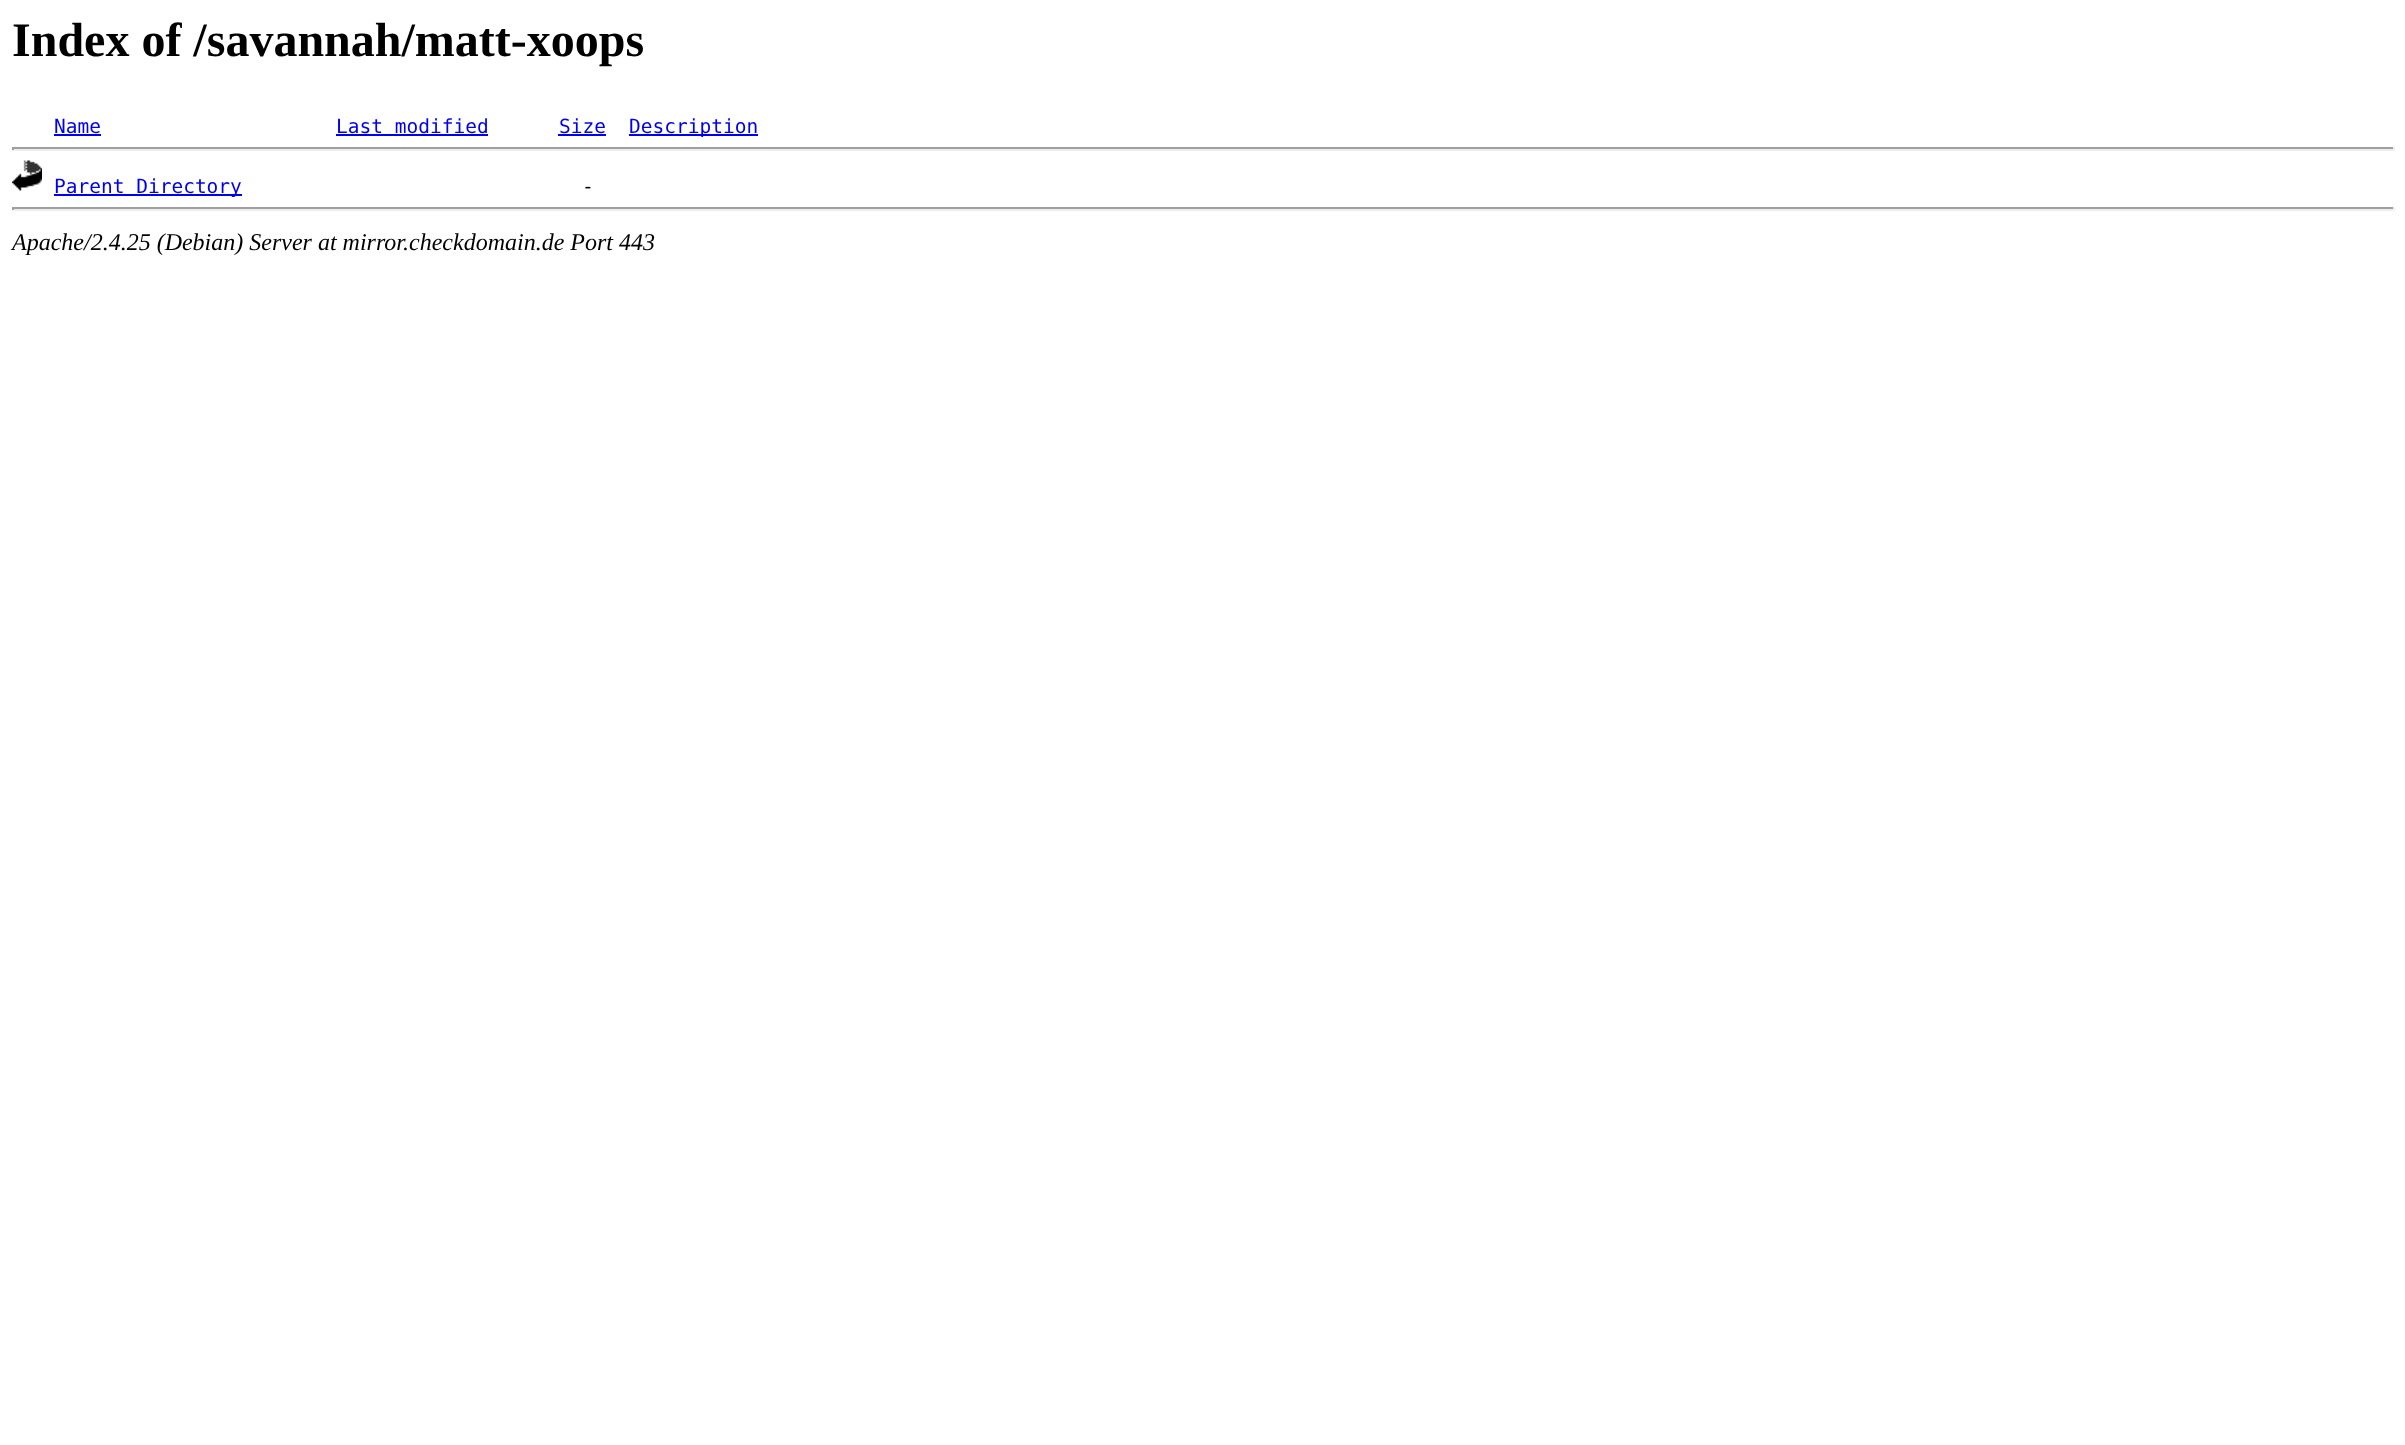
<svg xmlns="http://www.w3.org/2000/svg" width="2405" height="1445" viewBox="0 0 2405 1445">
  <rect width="100%" height="100%" fill="#fff"/>
  <path d="M54 134h47v2H54z" fill="#00e"/>
  <path d="M336 134h152v2H336z" fill="#00e"/>
  <path d="M558 134h48v2H558z" fill="#00e"/>
  <path d="M629 134h129v2H629z" fill="#00e"/>
  <path d="M12 147h2382v2H12z" fill="#9f9f9f"/>
  <path d="M2393 147h2v3H2393z" fill="#eee"/>
  <path d="M12 149h2382v2H12z" fill="#eee"/>
  <path d="M12 147h2v3H12z" fill="#9f9f9f"/>
  <image x="12" y="160" width="30" height="31" href="img/1.png"/>
  <path d="M54 194h188v2H54z" fill="#00e"/>
  <path d="M12 207h2382v2H12z" fill="#9f9f9f"/>
  <path d="M2393 207h2v3H2393z" fill="#eee"/>
  <path d="M12 209h2382v2H12z" fill="#eee"/>
  <path d="M12 207h2v3H12z" fill="#9f9f9f"/>
  <text x="12" y="56" font-family="Liberation Serif" font-size="48" font-weight="bold" fill="#000">Index of /savannah/matt-xoops</text>
  <g font-family="DejaVu Sans Mono" font-size="19.5" fill="#00e">
    <text x="54" y="133">Name</text>
    <text x="336" y="133">Last modified</text>
    <text x="559" y="133">Size</text>
    <text x="629" y="133">Description</text>
    <text x="54" y="193">Parent Directory</text>
  </g>
  <text x="582" y="193" font-family="DejaVu Sans Mono" font-size="19.5" fill="#000">-</text>
  <text x="12" y="250" font-family="Liberation Serif" font-size="24" font-style="italic" fill="#000">Apache/2.4.25 (Debian) Server at mirror.checkdomain.de Port 443</text>
</svg>
